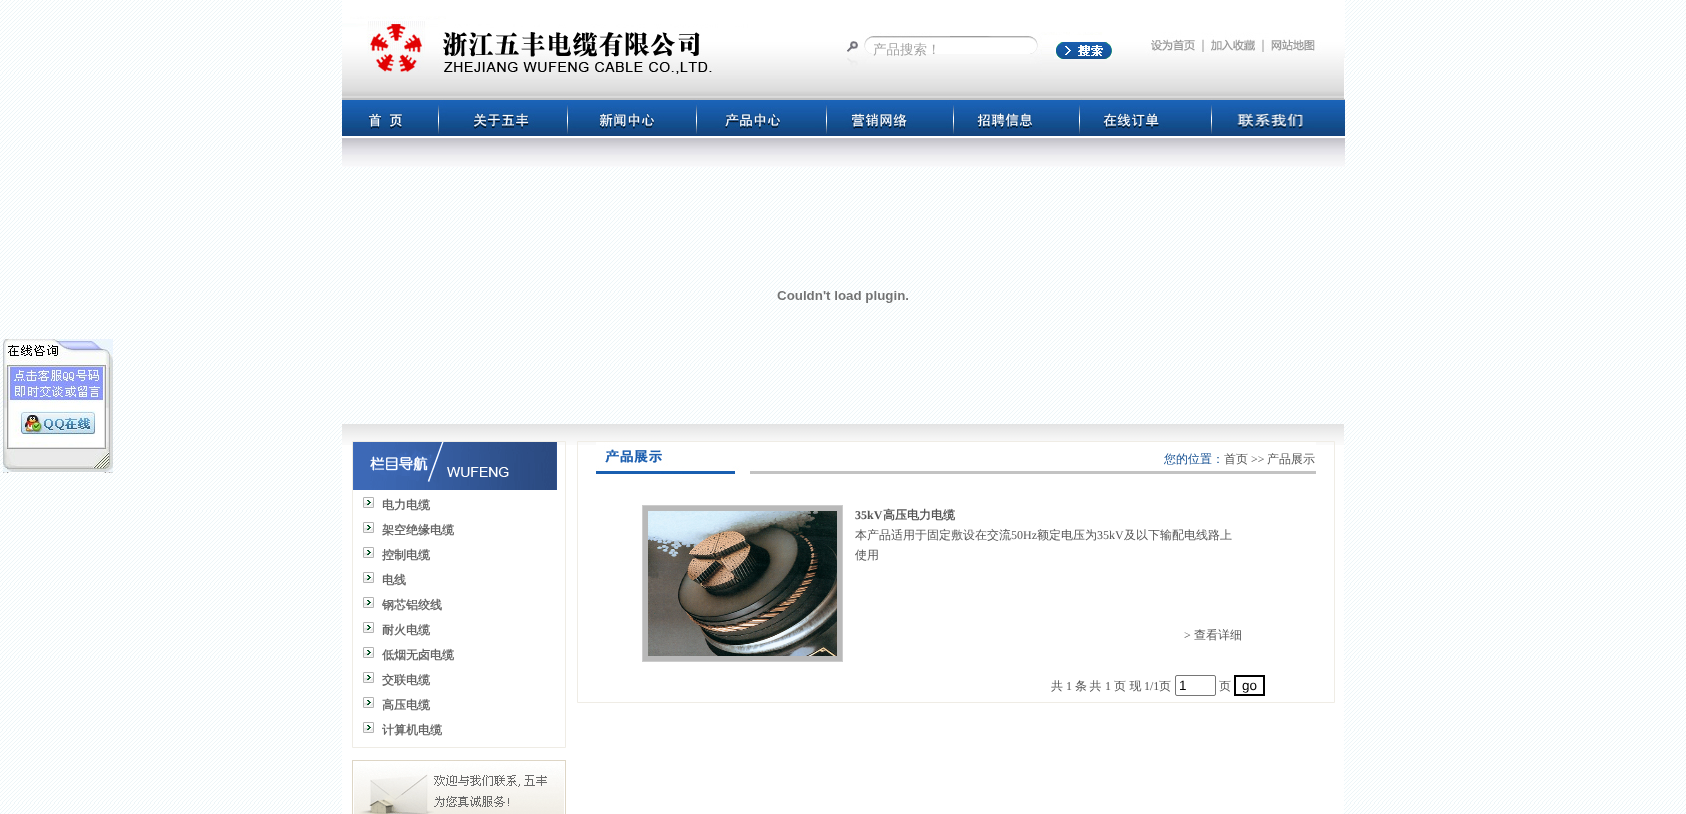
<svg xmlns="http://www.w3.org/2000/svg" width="1686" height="814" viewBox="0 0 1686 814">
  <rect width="100%" height="100%" fill="#fff"/>
  <image x="0" y="0" width="1686" height="814" href="img/1.png"/>
  <image x="342" y="0" width="492" height="99" href="img/2.png"/>
  <image x="834" y="0" width="303" height="99" href="img/3.png"/>
  <image x="1054" y="41" width="58" height="18" href="img/4.png"/>
  <path d="M1137 0h208v31H1137z" fill="#fff"/>
  <image x="1137" y="31" width="69" height="25" href="img/5.png"/>
  <image x="1206" y="31" width="60" height="25" href="img/6.png"/>
  <image x="1266" y="31" width="79" height="25" href="img/7.png"/>
  <image x="1137" y="56" width="208" height="43" href="img/8.png"/>
  <image x="342" y="99" width="98" height="38" href="img/9.png"/>
  <image x="440" y="99" width="131" height="38" href="img/10.png"/>
  <image x="571" y="99" width="132" height="38" href="img/11.png"/>
  <image x="703" y="99" width="131" height="38" href="img/12.png"/>
  <image x="834" y="99" width="130" height="38" href="img/13.png"/>
  <image x="964" y="99" width="130" height="38" href="img/14.png"/>
  <image x="1094" y="99" width="134" height="38" href="img/15.png"/>
  <image x="1228" y="99" width="117" height="38" href="img/16.png"/>
  <image x="342" y="137" width="1003" height="30" href="img/17.png"/>
  <image x="777" y="291" width="131" height="12" href="img/18.png"/>
  <image x="3" y="339" width="110" height="134" href="img/19.png"/>
  <path d="M342 445h1002v369H342z" fill="#fff"/>
  <image x="342" y="424" width="1002" height="21" href="img/20.png"/>
  <path d="M352.5 441.5h213v306H352.5z" fill="none" stroke="#efece5"/>
  <image x="353" y="442" width="204" height="48" href="img/21.png"/>
  <image x="363" y="497" width="11" height="11" href="img/22.png"/>
  <image x="363" y="522" width="11" height="11" href="img/22.png"/>
  <image x="363" y="547" width="11" height="11" href="img/22.png"/>
  <image x="363" y="572" width="11" height="11" href="img/22.png"/>
  <image x="363" y="597" width="11" height="11" href="img/22.png"/>
  <image x="363" y="622" width="11" height="11" href="img/22.png"/>
  <image x="363" y="647" width="11" height="11" href="img/22.png"/>
  <image x="363" y="672" width="11" height="11" href="img/22.png"/>
  <image x="363" y="697" width="11" height="11" href="img/22.png"/>
  <image x="363" y="722" width="11" height="11" href="img/22.png"/>
  <image x="352" y="760" width="214" height="54" href="img/23.png"/>
  <path d="M577.5 441.5h757v261H577.5z" fill="none" stroke="#efece5"/>
  <image x="596" y="442" width="720" height="32" href="img/24.png"/>
  <path d="M642 505h201v157H642z" fill="#ccc"/>
  <path d="M643 506h199v155H643z" fill="#b9b9b9"/>
  <image x="648" y="511" width="189" height="145" href="img/25.png"/>
  <rect x="1175.5" y="675.5" width="40" height="20" rx="1.5" fill="none" stroke="#767676"/>
  <path d="M1235 676h29v19H1235z" fill="none" stroke="#000" stroke-width="2"/>
  <text x="873" y="54" font-family="WenQuanYi Zen Hei" font-size="13.5" font-weight="500" fill="#a4a4a4">产品搜索！</text>
  <g font-family="WenQuanYi Zen Hei" font-size="12" font-weight="bold" fill="#666">
    <text x="382" y="509">电力电缆</text>
    <text x="382" y="534">架空绝缘电缆</text>
    <text x="382" y="559">控制电缆</text>
    <text x="382" y="584">电线</text>
    <text x="382" y="609">钢芯铝绞线</text>
    <text x="382" y="634">耐火电缆</text>
    <text x="382" y="659">低烟无卤电缆</text>
    <text x="382" y="684">交联电缆</text>
    <text x="382" y="709">高压电缆</text>
    <text x="382" y="734">计算机电缆</text>
  </g>
  <text x="1164" y="463" font-family="WenQuanYi Zen Hei" font-size="12" font-weight="500" fill="#155092">您的位置：</text>
  <text x="1224" y="463" font-family="WenQuanYi Zen Hei" font-size="12" font-weight="500" fill="#565656">首页</text>
  <text x="1251" y="463" font-family="Liberation Serif" font-size="12" fill="#565656">&gt;&gt;</text>
  <text x="1267" y="463" font-family="WenQuanYi Zen Hei" font-size="12" font-weight="500" fill="#565656">产品展示</text>
  <text x="855" y="519" font-family="Liberation Serif" font-size="12" font-weight="bold" fill="#565656">35kV</text>
  <text x="883" y="519" font-family="WenQuanYi Zen Hei" font-size="12" font-weight="bold" fill="#565656">高压电力电缆</text>
  <text x="855" y="539" font-family="WenQuanYi Zen Hei" font-size="12" font-weight="500" fill="#565656">本产品适用于固定敷设在交流</text>
  <text x="1011" y="539" font-family="Liberation Serif" font-size="12" fill="#565656">50Hz</text>
  <text x="1037" y="539" font-family="WenQuanYi Zen Hei" font-size="12" font-weight="500" fill="#565656">额定电压为</text>
  <text x="1097" y="539" font-family="Liberation Serif" font-size="12" fill="#565656">35kV</text>
  <g font-family="WenQuanYi Zen Hei" font-size="12" font-weight="500" fill="#565656">
    <text x="1124" y="539">及以下输配电线路上</text>
    <text x="855" y="559">使用</text>
  </g>
  <text x="1184" y="639" font-family="Liberation Serif" font-size="12" fill="#565656">&gt;</text>
  <g font-family="WenQuanYi Zen Hei" font-size="12" font-weight="500" fill="#565656">
    <text x="1194" y="639">查看详细</text>
    <text x="1051" y="690">共</text>
  </g>
  <text x="1066" y="690" font-family="Liberation Serif" font-size="12" fill="#565656">1</text>
  <text x="1075" y="690" word-spacing="-1" font-family="WenQuanYi Zen Hei" font-size="12" font-weight="500" fill="#565656">条 共</text>
  <text x="1105" y="690" font-family="Liberation Serif" font-size="12" fill="#565656">1</text>
  <text x="1114" y="690" font-family="WenQuanYi Zen Hei" font-size="12" font-weight="500" fill="#565656">页 现</text>
  <text x="1144" y="690" font-family="Liberation Serif" font-size="12" fill="#565656">1/1</text>
  <text x="1159" y="690" font-family="WenQuanYi Zen Hei" font-size="12" font-weight="500" fill="#565656">页</text>
  <text x="1179" y="690" font-family="Liberation Sans" font-size="13.5" fill="#000">1</text>
  <text x="1219" y="690" font-family="WenQuanYi Zen Hei" font-size="12" font-weight="500" fill="#565656">页</text>
  <text x="1242" y="690" font-family="Liberation Sans" font-size="13.5" fill="#000">go</text>
</svg>
